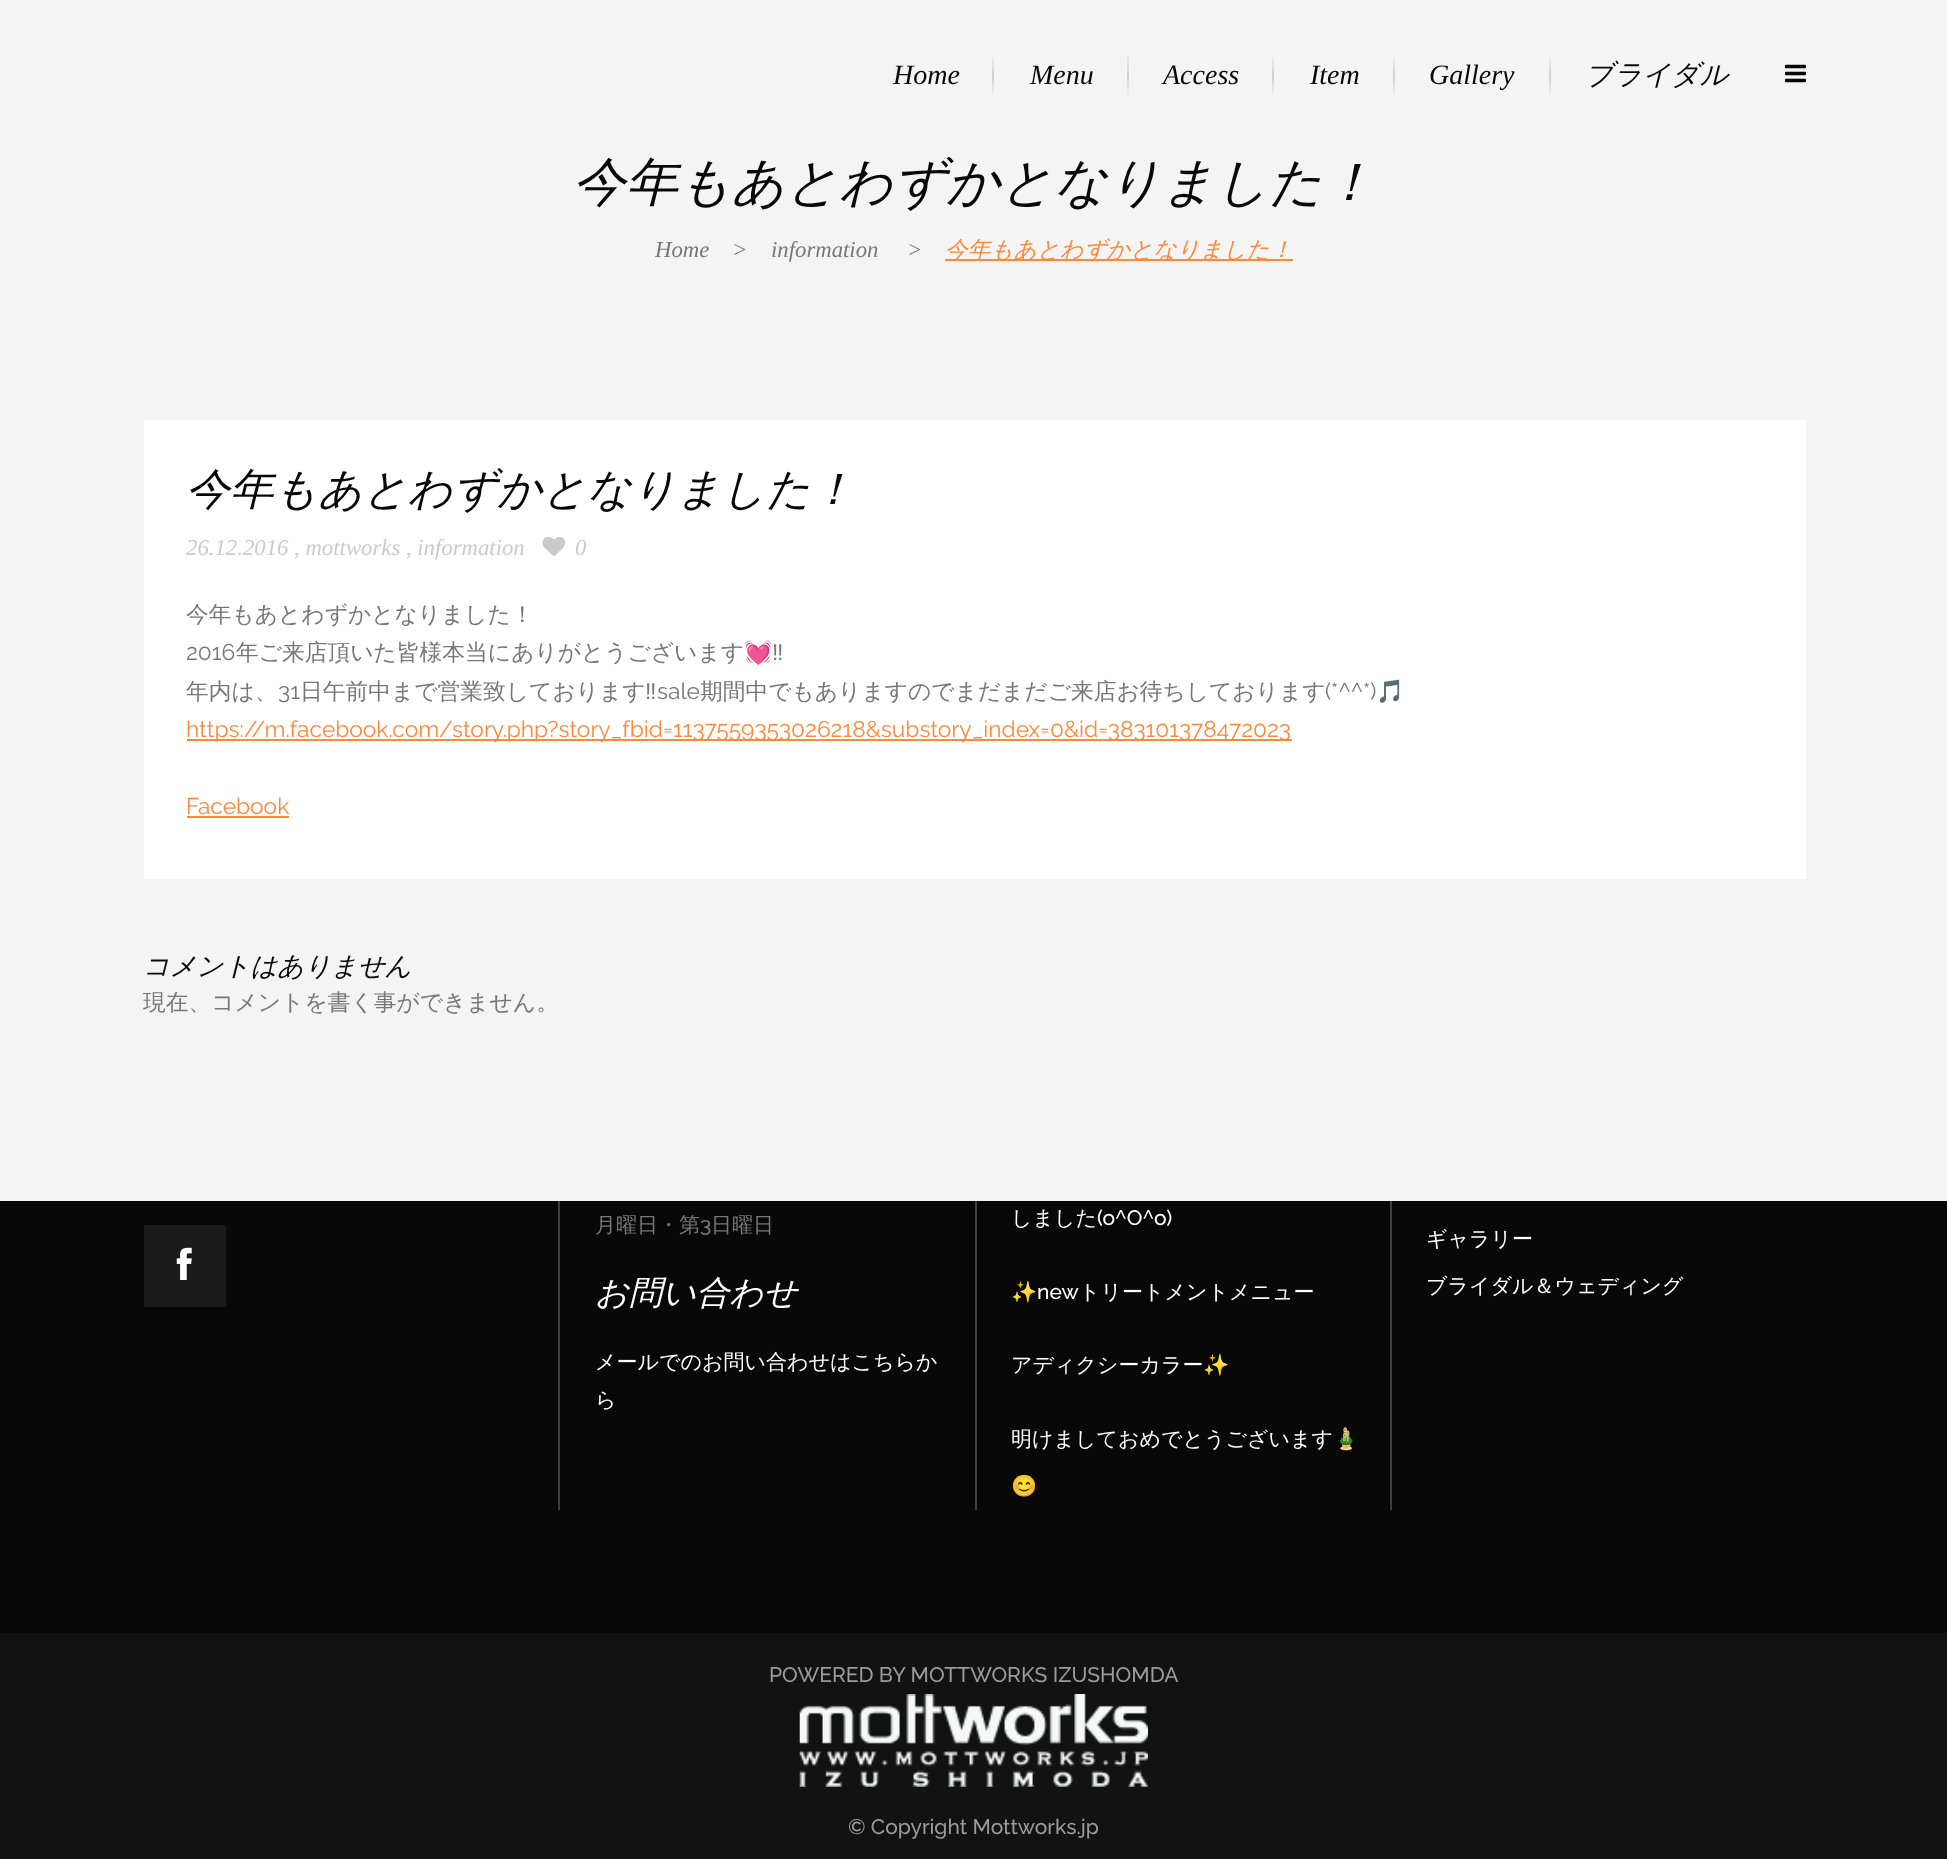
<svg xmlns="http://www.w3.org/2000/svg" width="1947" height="1859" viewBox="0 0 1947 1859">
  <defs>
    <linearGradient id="g1" gradientUnits="userSpaceOnUse" x1="993" y1="46" x2="993" y2="105"><stop offset="0.13" stop-color="#f4f4f4"/><stop offset="0.5" stop-color="#cfcfcf"/><stop offset="0.87" stop-color="#f4f4f4"/></linearGradient>
    <linearGradient id="g2" gradientUnits="userSpaceOnUse" x1="1128" y1="46" x2="1128" y2="105"><stop offset="0.13" stop-color="#f4f4f4"/><stop offset="0.5" stop-color="#cfcfcf"/><stop offset="0.87" stop-color="#f4f4f4"/></linearGradient>
    <linearGradient id="g3" gradientUnits="userSpaceOnUse" x1="1273" y1="46" x2="1273" y2="105"><stop offset="0.13" stop-color="#f4f4f4"/><stop offset="0.5" stop-color="#cfcfcf"/><stop offset="0.87" stop-color="#f4f4f4"/></linearGradient>
    <linearGradient id="g4" gradientUnits="userSpaceOnUse" x1="1394" y1="46" x2="1394" y2="105"><stop offset="0.13" stop-color="#f4f4f4"/><stop offset="0.5" stop-color="#cfcfcf"/><stop offset="0.87" stop-color="#f4f4f4"/></linearGradient>
    <linearGradient id="g5" gradientUnits="userSpaceOnUse" x1="1550" y1="46" x2="1550" y2="105"><stop offset="0.13" stop-color="#f4f4f4"/><stop offset="0.5" stop-color="#cfcfcf"/><stop offset="0.87" stop-color="#f4f4f4"/></linearGradient>
  </defs>
  <rect width="100%" height="100%" fill="#080808"/>
  <path d="M0 0h1947v1201H0z" fill="#f4f4f4"/>
  <path d="M992 55h2v41H992z" fill="url(#g1)"/>
  <path d="M1127 55h2v41H1127z" fill="url(#g2)"/>
  <path d="M1272 55h2v41H1272z" fill="url(#g3)"/>
  <path d="M1393 55h2v41H1393z" fill="url(#g4)"/>
  <path d="M1549 55h2v41H1549z" fill="url(#g5)"/>
  <image x="1785" y="64" width="21" height="19" href="img/1.png"/>
  <path d="M945 259h348v2H945z" fill="#ff8838"/>
  <path d="M144 420h1662v459H144z" fill="#fff"/>
  <image x="542" y="536" width="24" height="21" href="img/2.png"/>
  <path d="M187 739h1105v2H187z" fill="#ff8838"/>
  <path d="M187 816h102v2H187z" fill="#ff8838"/>
  <path d="M144 1225h82v82H144z" fill="#1b1b1b"/>
  <image x="176" y="1247" width="16" height="33" href="img/3.png"/>
  <path d="M558 1201h2v309H558z" fill="#3e3e3e"/>
  <path d="M975 1201h2v309H975z" fill="#3e3e3e"/>
  <path d="M1390 1201h2v309H1390z" fill="#3e3e3e"/>
  <path d="M0 1633h1947v226H0z" fill="#121212"/>
  <image x="799" y="1694" width="349" height="93" href="img/4.png"/>
  <g font-family="Liberation Serif" font-size="28" font-style="italic" fill="#080808">
    <text x="893" y="84">Home</text>
    <text x="1030" y="84">Menu</text>
    <text x="1163" y="84">Access</text>
    <text x="1310" y="84">Item</text>
    <text x="1429" y="84">Gallery</text>
  </g>
  <text x="1585" y="84" font-family="WenQuanYi Zen Hei" font-size="28" font-weight="500" font-style="italic" fill="#080808">ブライダル</text>
  <text x="573" y="200" font-family="WenQuanYi Zen Hei" font-size="52.5" font-weight="500" font-style="italic" fill="#080808">今年もあとわずかとなりました！</text>
  <g font-family="Liberation Serif" font-size="22.75" font-style="italic" fill="#777">
    <text x="655" y="257">Home</text>
    <text x="732" y="257">&gt;</text>
    <text x="771" y="257">information</text>
    <text x="907" y="257">&gt;</text>
  </g>
  <text x="945" y="257" font-family="WenQuanYi Zen Hei" font-size="22.75" font-weight="500" font-style="italic" fill="#ff8838">今年もあとわずかとなりました！</text>
  <text x="186" y="504" font-family="WenQuanYi Zen Hei" font-size="43.75" font-weight="500" font-style="italic" fill="#080808">今年もあとわずかとなりました！</text>
  <g font-family="Liberation Serif" font-size="22.75" font-style="italic" fill="#cacaca">
    <text x="186" y="555">26.12.2016 , mottworks , information</text>
    <text x="575" y="555">0</text>
  </g>
  <text x="186" y="622" font-family="WenQuanYi Zen Hei" font-size="22.75" font-weight="500" fill="#777">今年もあとわずかとなりました！</text>
  <text x="186" y="660" font-family="Raleway" font-size="22.75" fill="#777">2016</text>
  <text x="236" y="660" font-family="WenQuanYi Zen Hei" font-size="22.75" font-weight="500" fill="#777">年ご来店頂いた皆様本当にありがとうございます</text>
  <text x="744" y="660" font-family="Noto Color Emoji" font-size="22.75" fill="#777">💓</text>
  <text x="772" y="660" font-family="Liberation Sans" font-size="22.75" fill="#777">‼</text>
  <text x="186" y="699" font-family="WenQuanYi Zen Hei" font-size="22.75" font-weight="500" fill="#777">年内は、</text>
  <text x="278" y="699" font-family="Raleway" font-size="22.75" fill="#777">31</text>
  <text x="300" y="699" font-family="WenQuanYi Zen Hei" font-size="22.75" font-weight="500" fill="#777">日午前中まで営業致しております</text>
  <text x="645" y="699" font-family="Liberation Sans" font-size="22.75" fill="#777">‼</text>
  <text x="657" y="699" font-family="Raleway" font-size="22.75" fill="#777">sale</text>
  <text x="700" y="699" font-family="WenQuanYi Zen Hei" font-size="22.75" font-weight="500" fill="#777">期間中でもありますのでまだまだご来店お待ちしております</text>
  <text x="1325" y="699" font-family="Raleway" font-size="22.75" fill="#777">(*^^*)</text>
  <text x="1376" y="699" font-family="Noto Color Emoji" font-size="22.75" fill="#777">🎵</text>
  <g font-family="Raleway" font-size="22.75" fill="#ff8838">
    <text x="186" y="737">https://m.facebook.com/story.php?story_fbid=1137559353026218&amp;substory_index=0&amp;id=383101378472023</text>
    <text x="186" y="814">Facebook</text>
  </g>
  <text x="143" y="975" font-family="WenQuanYi Zen Hei" font-size="26.25" font-weight="500" font-style="italic" fill="#080808">コメントはありません</text>
  <text x="143" y="1010" font-family="WenQuanYi Zen Hei" font-size="22.75" font-weight="500" fill="#777">現在、コメントを書く事ができません。</text>
  <text x="595" y="1232" font-family="WenQuanYi Zen Hei" font-size="21" font-weight="500" fill="#777">月曜日・第</text>
  <text x="700" y="1232" font-family="Raleway" font-size="21" font-weight="500" fill="#777">3</text>
  <text x="711" y="1232" font-family="WenQuanYi Zen Hei" font-size="21" font-weight="500" fill="#777">日曜日</text>
  <text x="595" y="1304" font-family="WenQuanYi Zen Hei" font-size="33.25" font-weight="500" font-style="italic" fill="#fff">お問い合わせ</text>
  <g font-family="WenQuanYi Zen Hei" font-size="21" font-weight="500" fill="#fff">
    <text x="595" y="1369">メールでのお問い合わせはこちらか</text>
    <text x="595" y="1407">ら</text>
    <text x="1011" y="1225">しました</text>
  </g>
  <text x="1097" y="1225" font-family="Raleway" font-size="21" font-weight="500" fill="#fff">(o^O^o)</text>
  <text x="1011" y="1299" font-family="Noto Color Emoji" font-size="21" fill="#fff">✨</text>
  <text x="1037" y="1299" font-family="Raleway" font-size="21" font-weight="500" fill="#fff">new</text>
  <g font-family="WenQuanYi Zen Hei" font-size="21" font-weight="500" fill="#fff">
    <text x="1079" y="1299">トリートメントメニュー</text>
    <text x="1011" y="1372">アディクシーカラー</text>
  </g>
  <text x="1203" y="1372" font-family="Noto Color Emoji" font-size="21" fill="#fff">✨</text>
  <text x="1011" y="1446" font-family="WenQuanYi Zen Hei" font-size="21" font-weight="500" fill="#fff">明けましておめでとうございます</text>
  <g font-family="Noto Color Emoji" font-size="21" fill="#fff">
    <text x="1333" y="1446">🎍</text>
    <text x="1011" y="1493">😊</text>
  </g>
  <g font-family="WenQuanYi Zen Hei" font-size="21" font-weight="500" fill="#fff">
    <text x="1426" y="1246">ギャラリー</text>
    <text x="1426" y="1293">ブライダル＆ウェディング</text>
  </g>
  <g font-family="Raleway" font-size="21" font-weight="500" fill="#9b9b9b">
    <text x="769" y="1682">POWERED BY MOTTWORKS IZUSHOMDA</text>
    <text x="848" y="1834">© Copyright Mottworks.jp</text>
  </g>
</svg>
